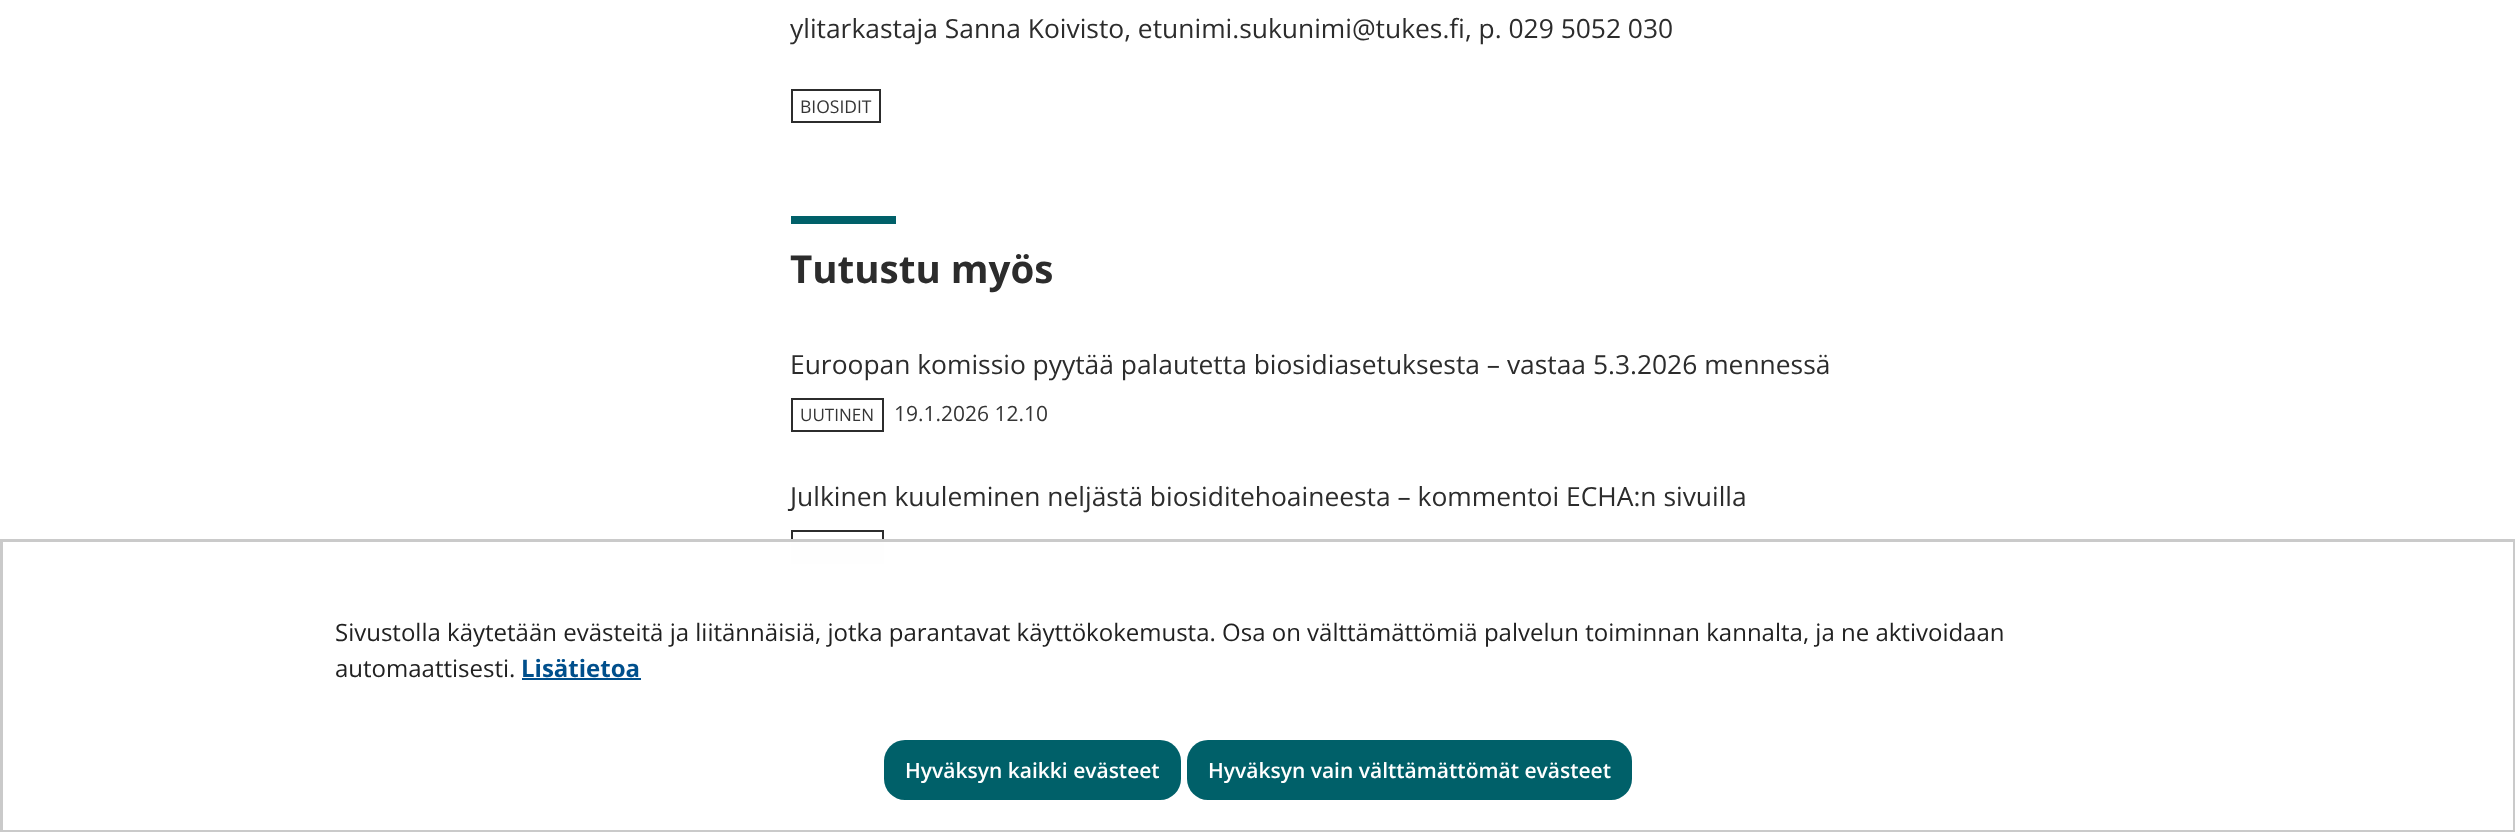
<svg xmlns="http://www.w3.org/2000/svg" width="2515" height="832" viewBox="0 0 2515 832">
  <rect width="100%" height="100%" fill="#fff"/>
  <path d="M792 90h88v32H792z" fill="none" stroke="#2c2c2c" stroke-width="2"/>
  <path d="M791 216h105v8H791z" fill="#006069"/>
  <path d="M792 399h91v32H792z" fill="none" stroke="#2c2c2c" stroke-width="2"/>
  <path d="M792 531h91v32H792z" fill="none" stroke="#2c2c2c" stroke-width="2"/>
  <path d="M791 542h93v22H791z" fill="#fefefe"/>
  <path d="M1.5 540.5h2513v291H1.5z" fill="none" stroke="#cacaca" stroke-width="3"/>
  <path d="M522 678h119v2H522z" fill="#004f8c"/>
  <rect x="884" y="740" width="297" height="60" rx="21" fill="#006069"/>
  <rect x="1187" y="740" width="445" height="60" rx="21" fill="#006069"/>
  <text x="790" y="38" font-family="Open Sans" font-size="26.4" fill="#2c2c2c">ylitarkastaja Sanna Koivisto, etunimi.sukunimi@tukes.fi, p. 029 5052 030</text>
  <text x="800" y="113" font-family="Open Sans" font-size="17.5" fill="#353535">BIOSIDIT</text>
  <text x="790" y="283" font-family="Open Sans" font-size="38.5" font-weight="bold" fill="#2c2c2c">Tutustu myös</text>
  <text x="790" y="374" font-family="Open Sans" font-size="26.4" fill="#2c2c2c">Euroopan komissio pyytää palautetta biosidiasetuksesta – vastaa 5.3.2026 mennessä</text>
  <text x="800" y="421" font-family="Open Sans" font-size="17" fill="#353535">UUTINEN</text>
  <text x="894" y="421" font-family="Open Sans" font-size="21" fill="#353535">19.1.2026 12.10</text>
  <text x="790" y="506" font-family="Open Sans" font-size="26.4" fill="#2c2c2c">Julkinen kuuleminen neljästä biosiditehoaineesta – kommentoi ECHA:n sivuilla</text>
  <g font-family="Open Sans" font-size="24" fill="#212121">
    <text x="335" y="641">Sivustolla käytetään evästeitä ja liitännäisiä, jotka parantavat käyttökokemusta. Osa on välttämättömiä palvelun toiminnan kannalta, ja ne aktivoidaan</text>
    <text x="335" y="677">automaattisesti.</text>
  </g>
  <text x="521" y="677" font-family="Open Sans" font-size="24" font-weight="bold" fill="#004f8c">Lisätietoa</text>
  <g font-family="Open Sans" font-size="21" font-weight="600" fill="#fff">
    <text x="905" y="778">Hyväksyn kaikki evästeet</text>
    <text x="1208" y="778">Hyväksyn vain välttämättömät evästeet</text>
  </g>
</svg>
